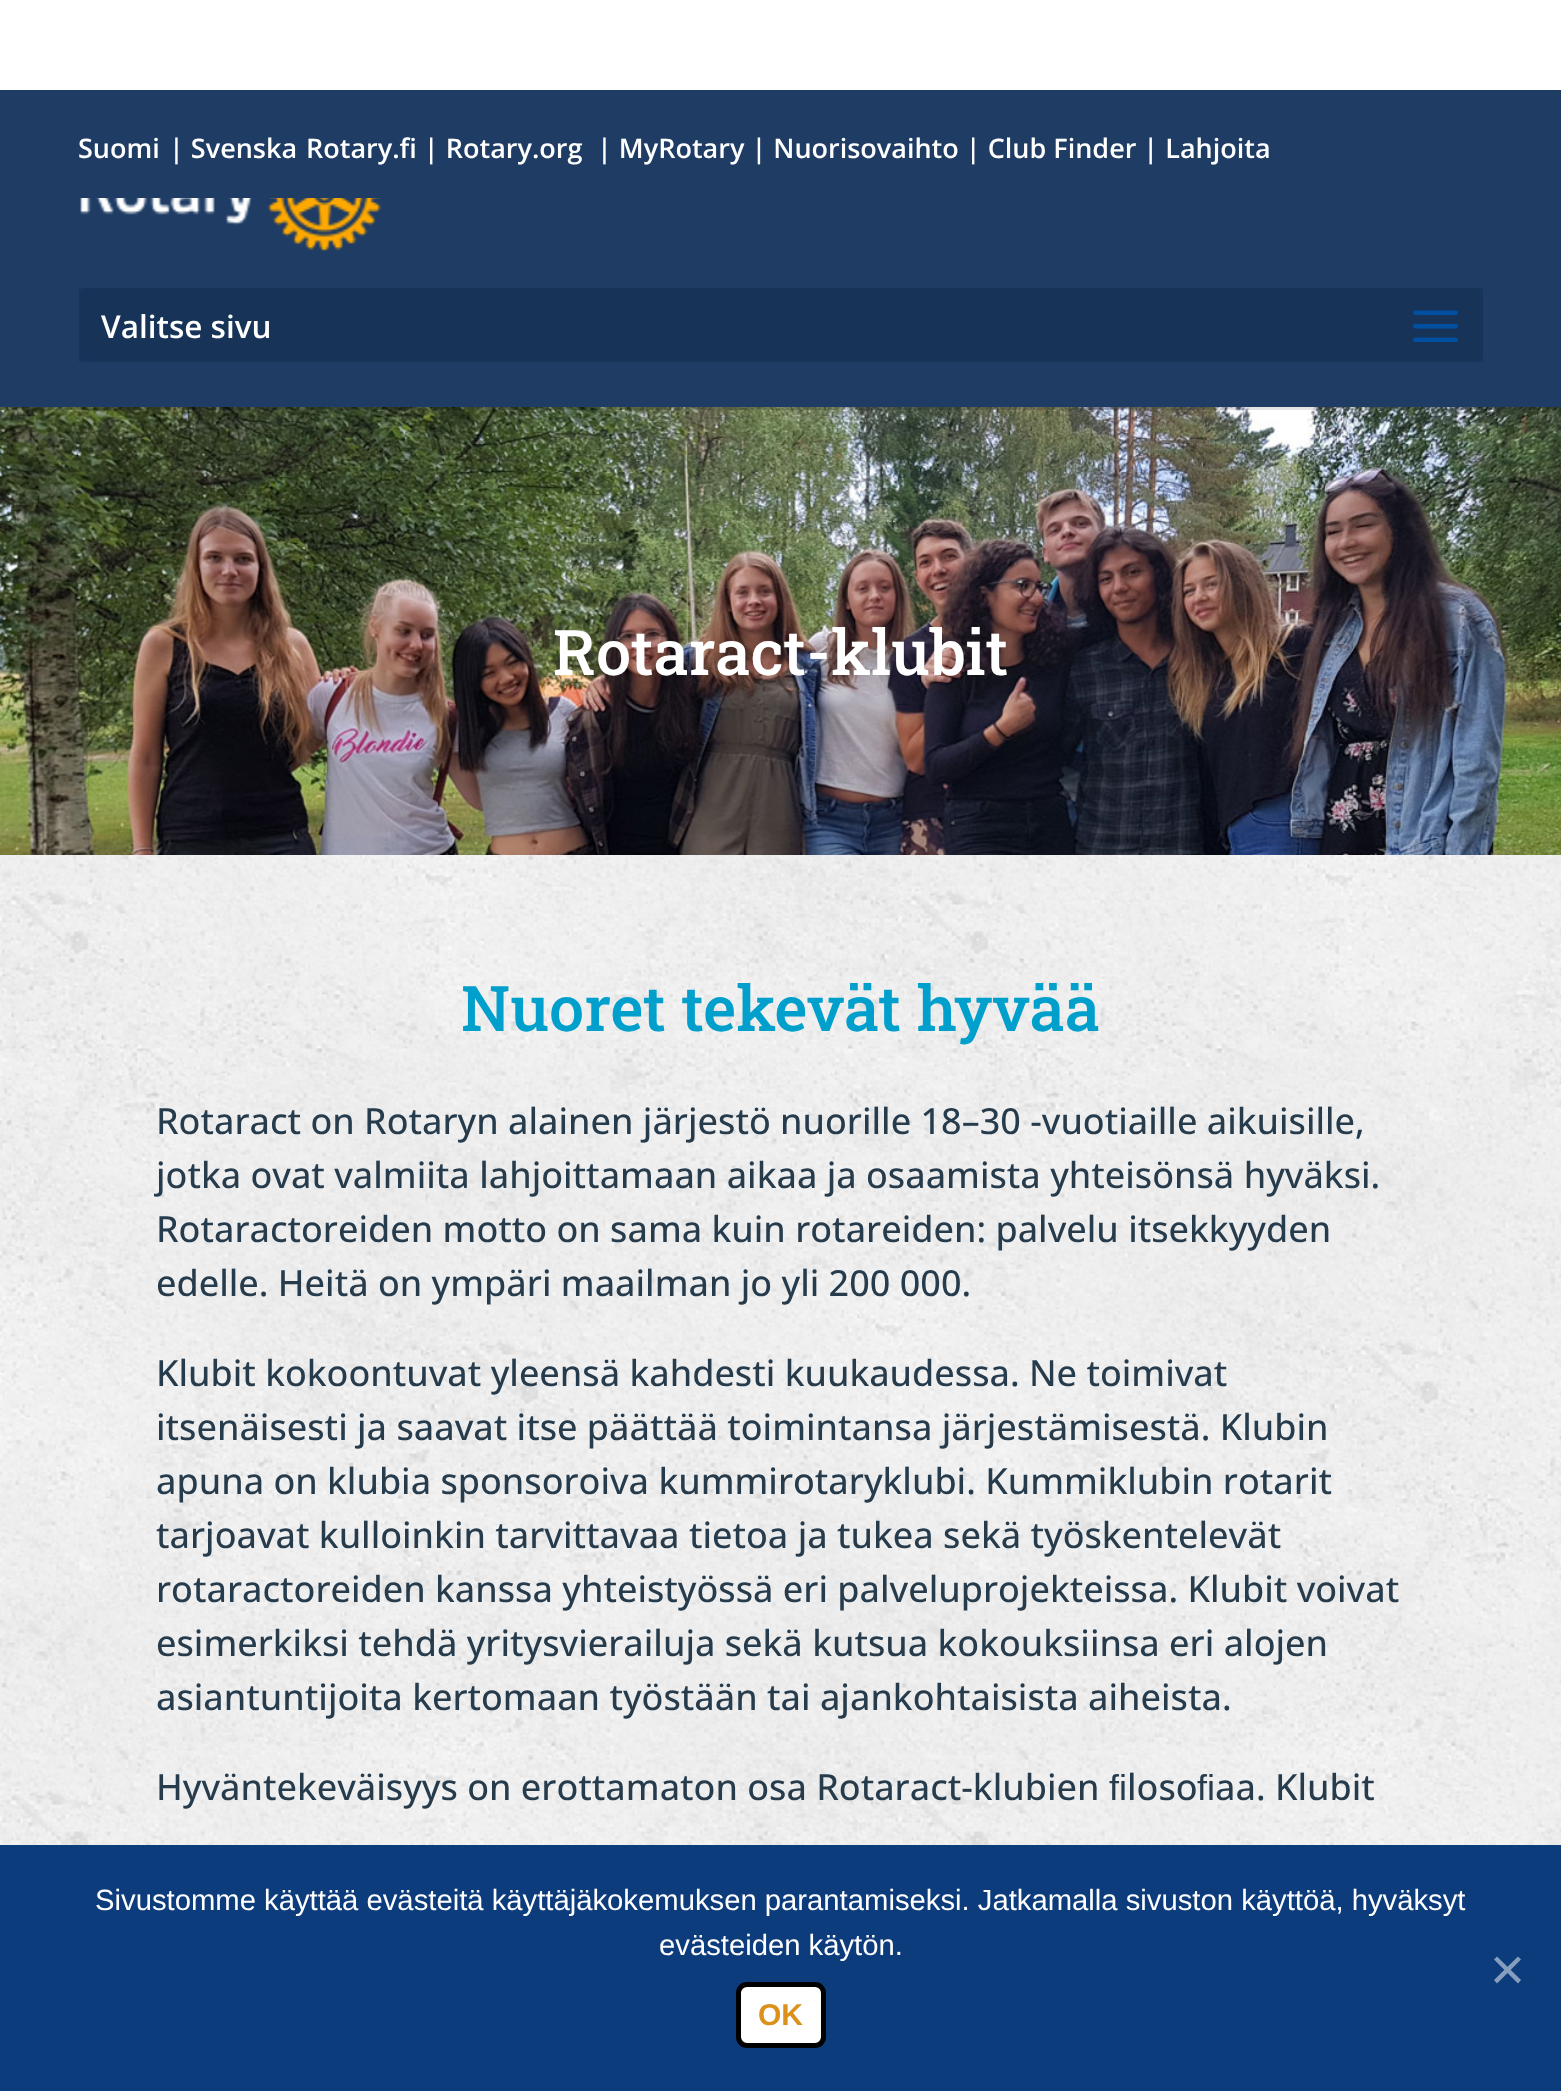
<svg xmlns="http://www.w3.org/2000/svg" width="1561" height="2091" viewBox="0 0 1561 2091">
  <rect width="100%" height="100%" fill="#fff"/>
  <image x="0" y="407" width="1561" height="448" href="img/3.png"/>
  <path d="M0 407V410H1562V92V407Z" fill="#0000001a"/>
  <path d="M0 90h1561v317H0z" fill="#1e3c64"/>
  <image x="80" y="198" width="302" height="53" href="img/1.png"/>
  <path d="M79 288h1404v74H79z" fill="#18365d"/>
  <rect x="79" y="288" width="1404" height="74" rx="11" fill="#173358"/>
  <image x="1413" y="310" width="45" height="32" href="img/2.png"/>
  <image x="0" y="855" width="1561" height="990" href="img/4.png"/>
  <path d="M0 1845h1561v246H0z" fill="#0c3c7c"/>
  <path d="M1518 1956.5L1521 1959.5L1497 1983.5L1494 1980Z" fill="#869ebe"/>
  <path d="M1494 1959.5L1497 1956.5L1521 1980L1518 1983.5Z" fill="#869ebe"/>
  <rect x="738.5" y="1984.5" width="85" height="61" rx="8.5" fill="#fff" stroke="#000" stroke-width="5"/>
  <g font-family="Open Sans" font-size="27" font-weight="600" fill="#fff">
    <text x="78" y="158">Suomi</text>
    <text x="169" y="158">| Svenska</text>
    <text x="306" y="158">Rotary.fi | Rotary.org</text>
    <text x="597" y="158">| MyRotary | Nuorisovaihto | Club Finder | Lahjoita</text>
  </g>
  <text x="101" y="338" font-family="Open Sans" font-size="31.5" font-weight="600" fill="#fff">Valitse sivu</text>
  <text x="553" y="675" font-family="Roboto Slab" font-size="63" font-weight="500" fill="#fff">Rotaract-klubit</text>
  <text x="461" y="1031" font-family="Roboto Slab" font-size="63" font-weight="500" fill="#019fcb">Nuoret tekevät hyvää</text>
  <g font-family="Open Sans" font-size="36" font-weight="500" fill="#263b4c">
    <text x="156" y="1134">Rotaract on Rotaryn alainen järjestö nuorille 18–30 -vuotiaille aikuisille,</text>
    <text x="156" y="1188">jotka ovat valmiita lahjoittamaan aikaa ja osaamista yhteisönsä hyväksi.</text>
    <text x="156" y="1242">Rotaractoreiden motto on sama kuin rotareiden: palvelu itsekkyyden</text>
    <text x="156" y="1296">edelle. Heitä on ympäri maailman jo yli 200 000.</text>
    <text x="156" y="1386">Klubit kokoontuvat yleensä kahdesti kuukaudessa. Ne toimivat</text>
    <text x="156" y="1440">itsenäisesti ja saavat itse päättää toimintansa järjestämisestä. Klubin</text>
    <text x="156" y="1494">apuna on klubia sponsoroiva kummirotaryklubi. Kummiklubin rotarit</text>
    <text x="156" y="1548">tarjoavat kulloinkin tarvittavaa tietoa ja tukea sekä työskentelevät</text>
    <text x="156" y="1602">rotaractoreiden kanssa yhteistyössä eri palveluprojekteissa. Klubit voivat</text>
    <text x="156" y="1656">esimerkiksi tehdä yritysvierailuja sekä kutsua kokouksiinsa eri alojen</text>
    <text x="156" y="1710">asiantuntijoita kertomaan työstään tai ajankohtaisista aiheista.</text>
    <text x="156" y="1800">Hyväntekeväisyys on erottamaton osa Rotaract-klubien</text>
  </g>
  <text x="1109" y="1800" font-family="Liberation Sans" font-size="36" fill="#263b4c">ﬁ</text>
  <text x="1127" y="1800" font-family="Open Sans" font-size="36" font-weight="500" fill="#263b4c">loso</text>
  <text x="1197" y="1800" font-family="Liberation Sans" font-size="36" fill="#263b4c">ﬁ</text>
  <text x="1215" y="1800" font-family="Open Sans" font-size="36" font-weight="500" fill="#263b4c">aa. Klubit</text>
  <g font-family="Liberation Sans" font-size="29.25" fill="#fff">
    <text x="95" y="1910">Sivustomme käyttää evästeitä käyttäjäkokemuksen parantamiseksi. Jatkamalla sivuston käyttöä, hyväksyt</text>
    <text x="659" y="1955">evästeiden käytön.</text>
  </g>
  <text x="758" y="2025" font-family="Liberation Sans" font-size="30" font-weight="bold" fill="#dc911b">OK</text>
</svg>
